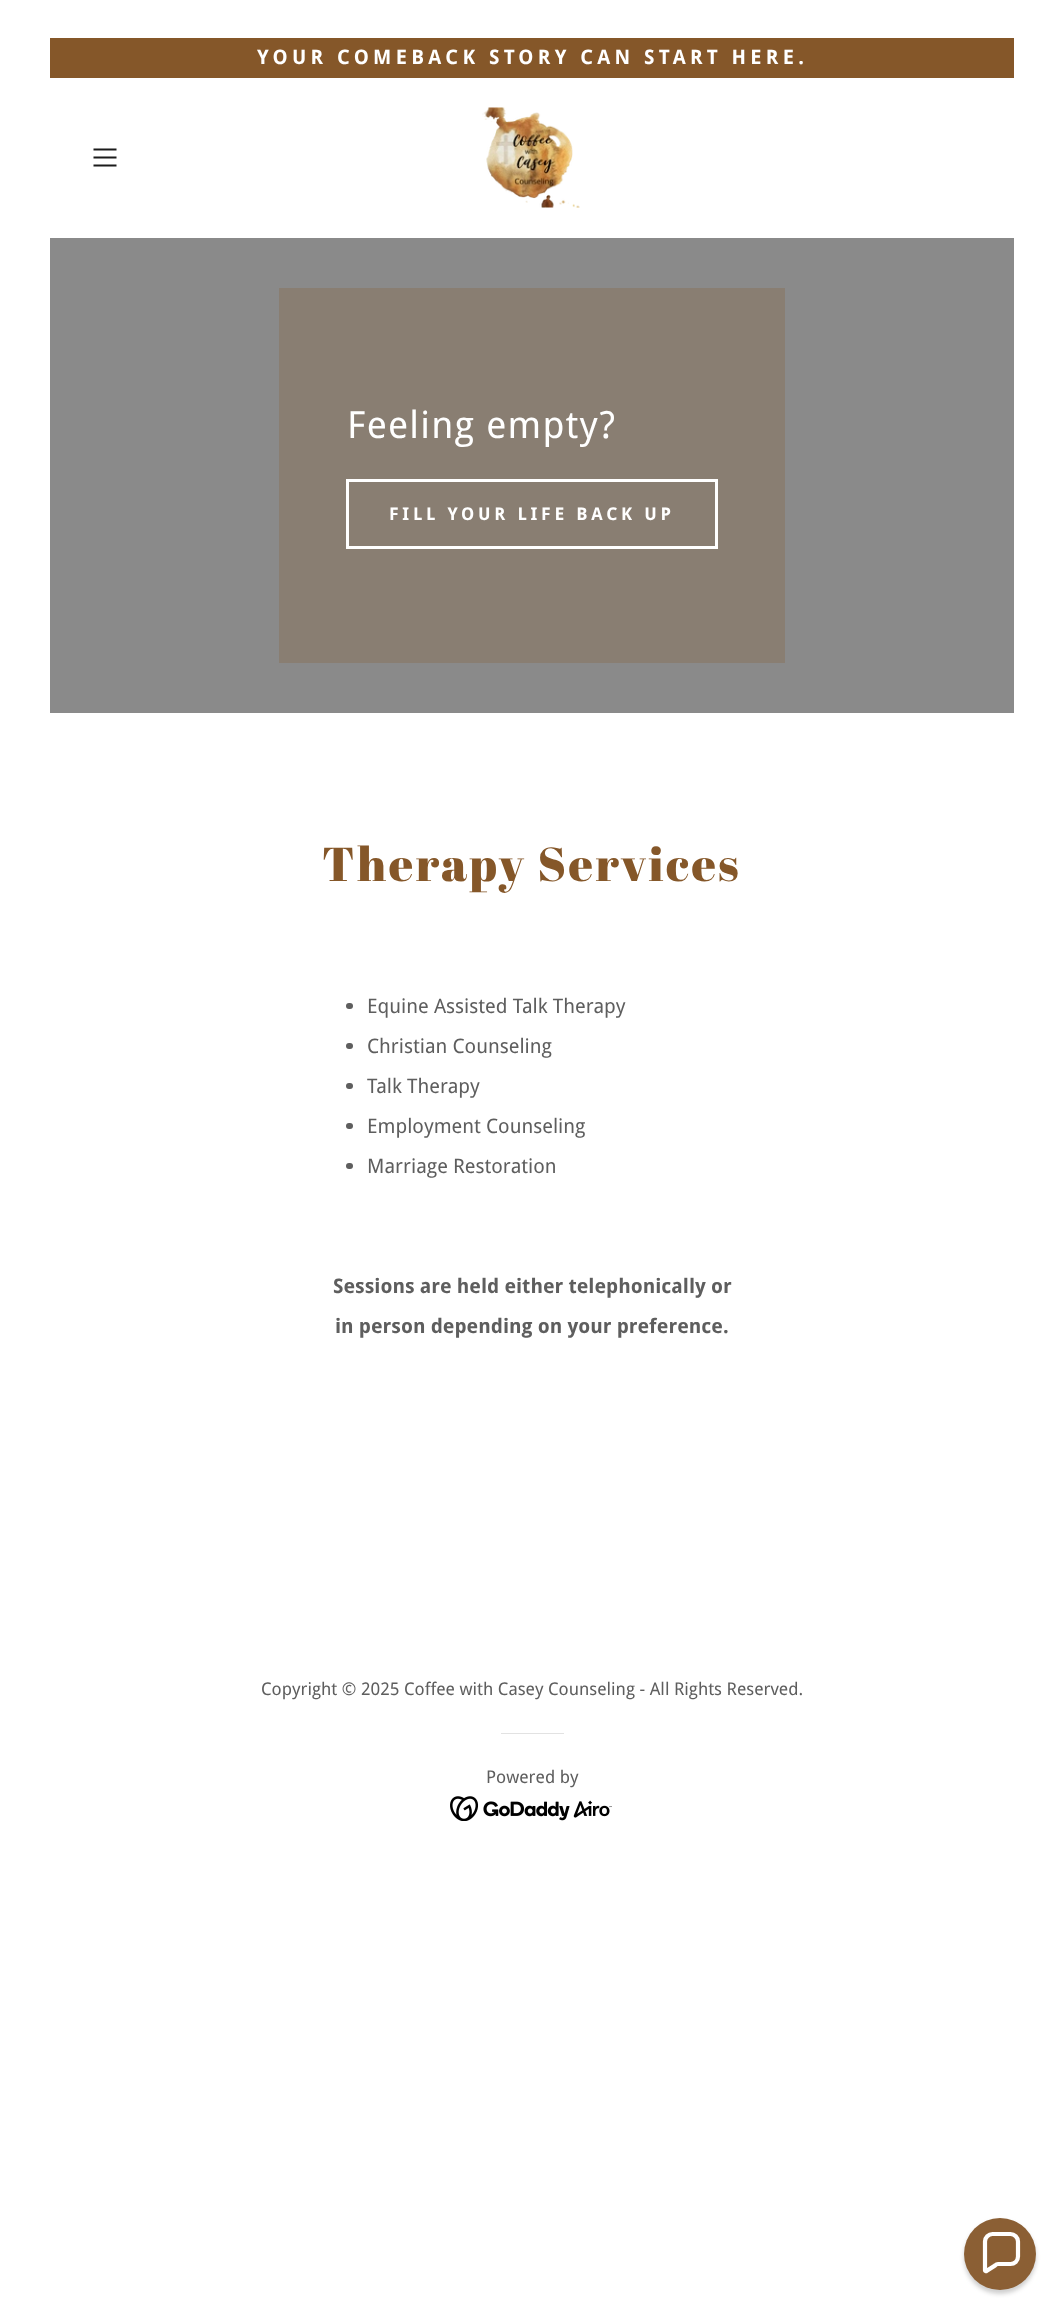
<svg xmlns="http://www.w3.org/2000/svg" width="1063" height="2317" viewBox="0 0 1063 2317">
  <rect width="100%" height="100%" fill="#fff"/>
  <path d="M50 38h964v40H50z" fill="#855729"/>
  <path d="M93.5 149.5H116.5ZM93.5 157.5H116.5ZM93.5 165.5H116.5Z" fill="none" stroke="#1b1b1b" stroke-width="2.2" stroke-linecap="square"/>
  <image x="482" y="107" width="98" height="101" href="img/1.png"/>
  <path d="M50 238h964v475H50z" fill="#8a8a8a"/>
  <path d="M279 288h506v375H279z" fill="#897e72"/>
  <path d="M347.5 480.5h369v67H347.5z" fill="none" stroke="#fff" stroke-width="3"/>
  <rect x="346" y="1003" width="7" height="6" rx="3" fill="#5e5e5e"/>
  <rect x="346" y="1043" width="7" height="6" rx="3" fill="#5e5e5e"/>
  <rect x="346" y="1083" width="7" height="6" rx="3" fill="#5e5e5e"/>
  <rect x="346" y="1123" width="7" height="6" rx="3" fill="#5e5e5e"/>
  <rect x="346" y="1163" width="7" height="6" rx="3" fill="#5e5e5e"/>
  <path d="M501 1733h63v1H501z" fill="#e2e2e2"/>
  <image x="450" y="1796" width="162" height="25" href="img/2.png"/>
  <rect x="964" y="2221" width="72" height="73" rx="36" fill="#0d0d0d33" filter="blur(2px)"/>
  <circle cx="1000" cy="2254" r="36" fill="#8b5f34"/>
  <path d="M1010.5 2234H992.5C988.5 2234 985 2237.5 985 2241.5V2270.5C985 2271 986 2271.5 986.5 2271L995 2265.5C996 2264.5 997 2264 998 2264H1010.5C1014.5 2264 1018 2261 1018 2256.5V2241.5C1018 2237.5 1014.5 2234 1010.5 2234Z" fill="none" stroke="#fff" stroke-width="4.2"/>
  <text x="257" y="64" font-family="Droid Sans" font-size="20" font-weight="bold" letter-spacing="4.3" fill="#fff">YOUR COMEBACK STORY CAN START HERE.</text>
  <text x="347" y="438" font-family="Droid Sans" font-size="37.5" letter-spacing="1.25" fill="#fff">Feeling empty?</text>
  <text x="389" y="520" font-family="Droid Sans" font-size="17.5" font-weight="bold" letter-spacing="3.75" fill="#fff">FILL YOUR LIFE BACK UP</text>
  <text x="322" y="881" font-family="Abril Fatface" font-size="47.5" letter-spacing="2.5" fill="#855729">Therapy Services</text>
  <g font-family="Droid Sans" font-size="20" fill="#5e5e5e">
    <text x="367" y="1013">Equine Assisted Talk Therapy</text>
    <text x="367" y="1053">Christian Counseling</text>
    <text x="367" y="1093">Talk Therapy</text>
    <text x="367" y="1133">Employment Counseling</text>
    <text x="367" y="1173">Marriage Restoration</text>
  </g>
  <g font-family="Droid Sans" font-size="20" font-weight="bold" fill="#5e5e5e">
    <text x="333" y="1293">Sessions are held either telephonically or</text>
    <text x="335" y="1333">in person depending on your preference.</text>
  </g>
  <g font-family="Droid Sans" font-size="17.5" fill="#5e5e5e">
    <text x="261" y="1695">Copyright © 2025 Coffee with Casey Counseling - All Rights Reserved.</text>
    <text x="486" y="1783">Powered by</text>
  </g>
</svg>
